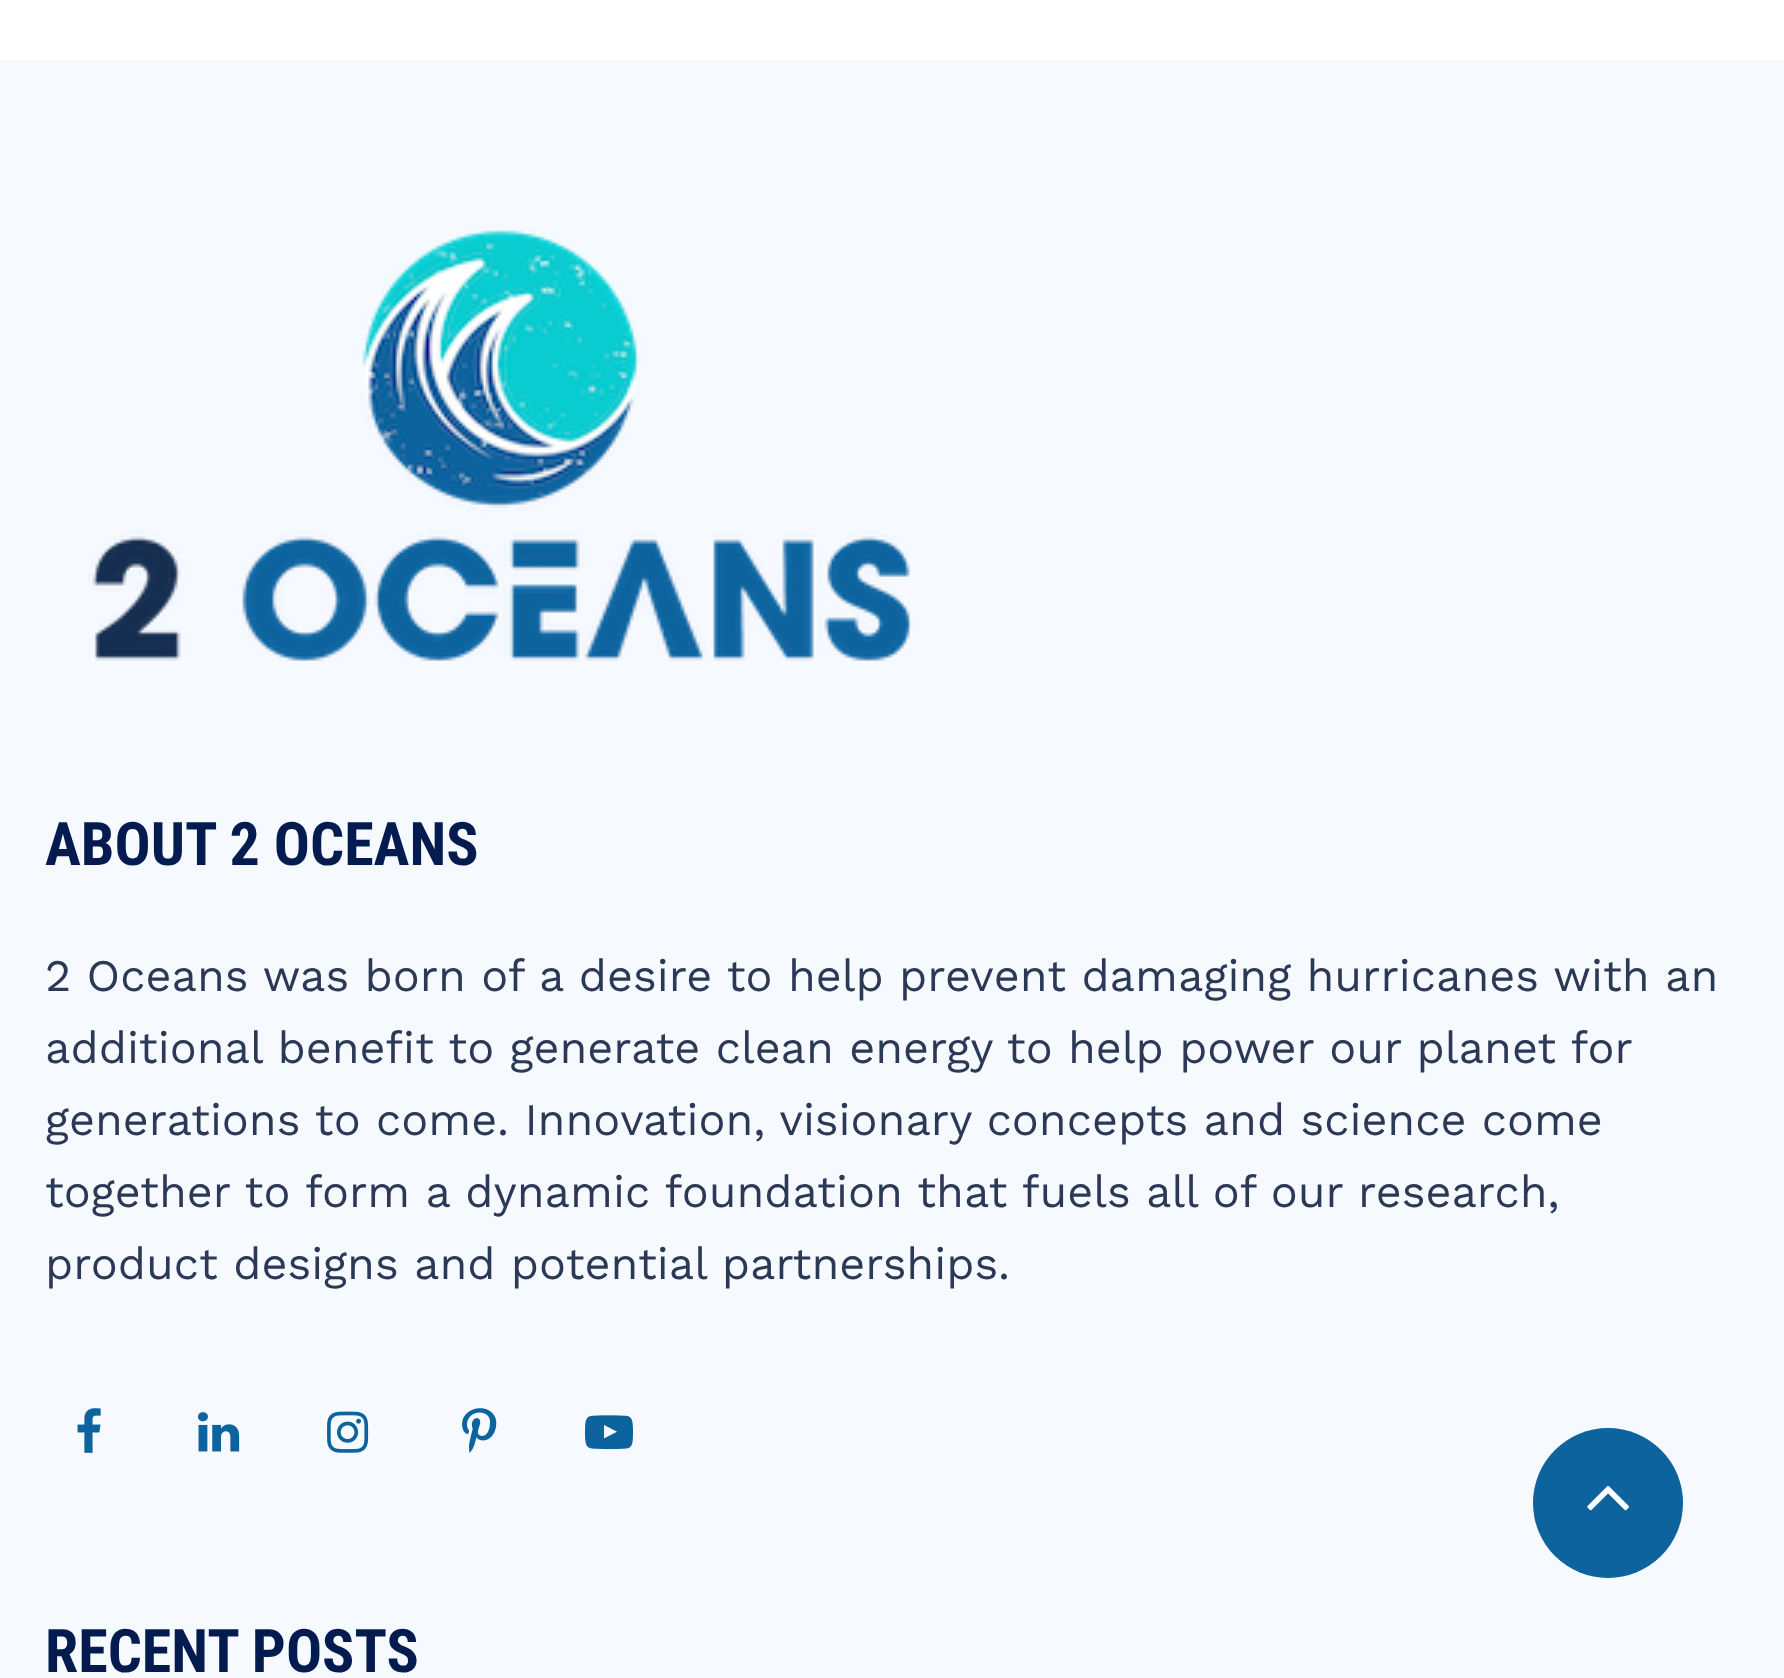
<svg xmlns="http://www.w3.org/2000/svg" width="1784" height="1678" viewBox="0 0 1784 1678">
  <rect width="100%" height="100%" fill="#fff"/>
  <path d="M0 60h1784v1618H0z" fill="#f6faff"/>
  <image x="88" y="226" width="825" height="436" href="img/1.png"/>
  <image x="77" y="1408" width="24" height="45" href="img/2.png"/>
  <image x="198" y="1412" width="42" height="40" href="img/3.png"/>
  <image x="327" y="1411" width="42" height="42" href="img/4.png"/>
  <image x="462" y="1408" width="35" height="45" href="img/5.png"/>
  <image x="585" y="1415" width="48" height="35" href="img/6.png"/>
  <circle cx="1608" cy="1503" r="75" fill="#0d639e"/>
  <image x="1587" y="1485" width="42" height="26" href="img/7.png"/>
  <text x="45" y="865" font-family="Roboto Condensed" font-size="60" font-weight="bold" fill="#031b4e">ABOUT 2 OCEANS</text>
  <g font-family="Work Sans" font-size="45" fill="#2b3856">
    <text x="45" y="991">2 Oceans was born of a desire to help prevent damaging hurricanes with an</text>
    <text x="45" y="1063">additional benefit to generate clean energy to help power our planet for</text>
    <text x="45" y="1135">generations to come. Innovation, visionary concepts and science come</text>
    <text x="45" y="1207">together to form a dynamic foundation that fuels all of our research,</text>
    <text x="45" y="1279">product designs and potential partnerships.</text>
  </g>
  <text x="45" y="1672" font-family="Roboto Condensed" font-size="60" font-weight="bold" fill="#031b4e">RECENT POSTS</text>
</svg>
